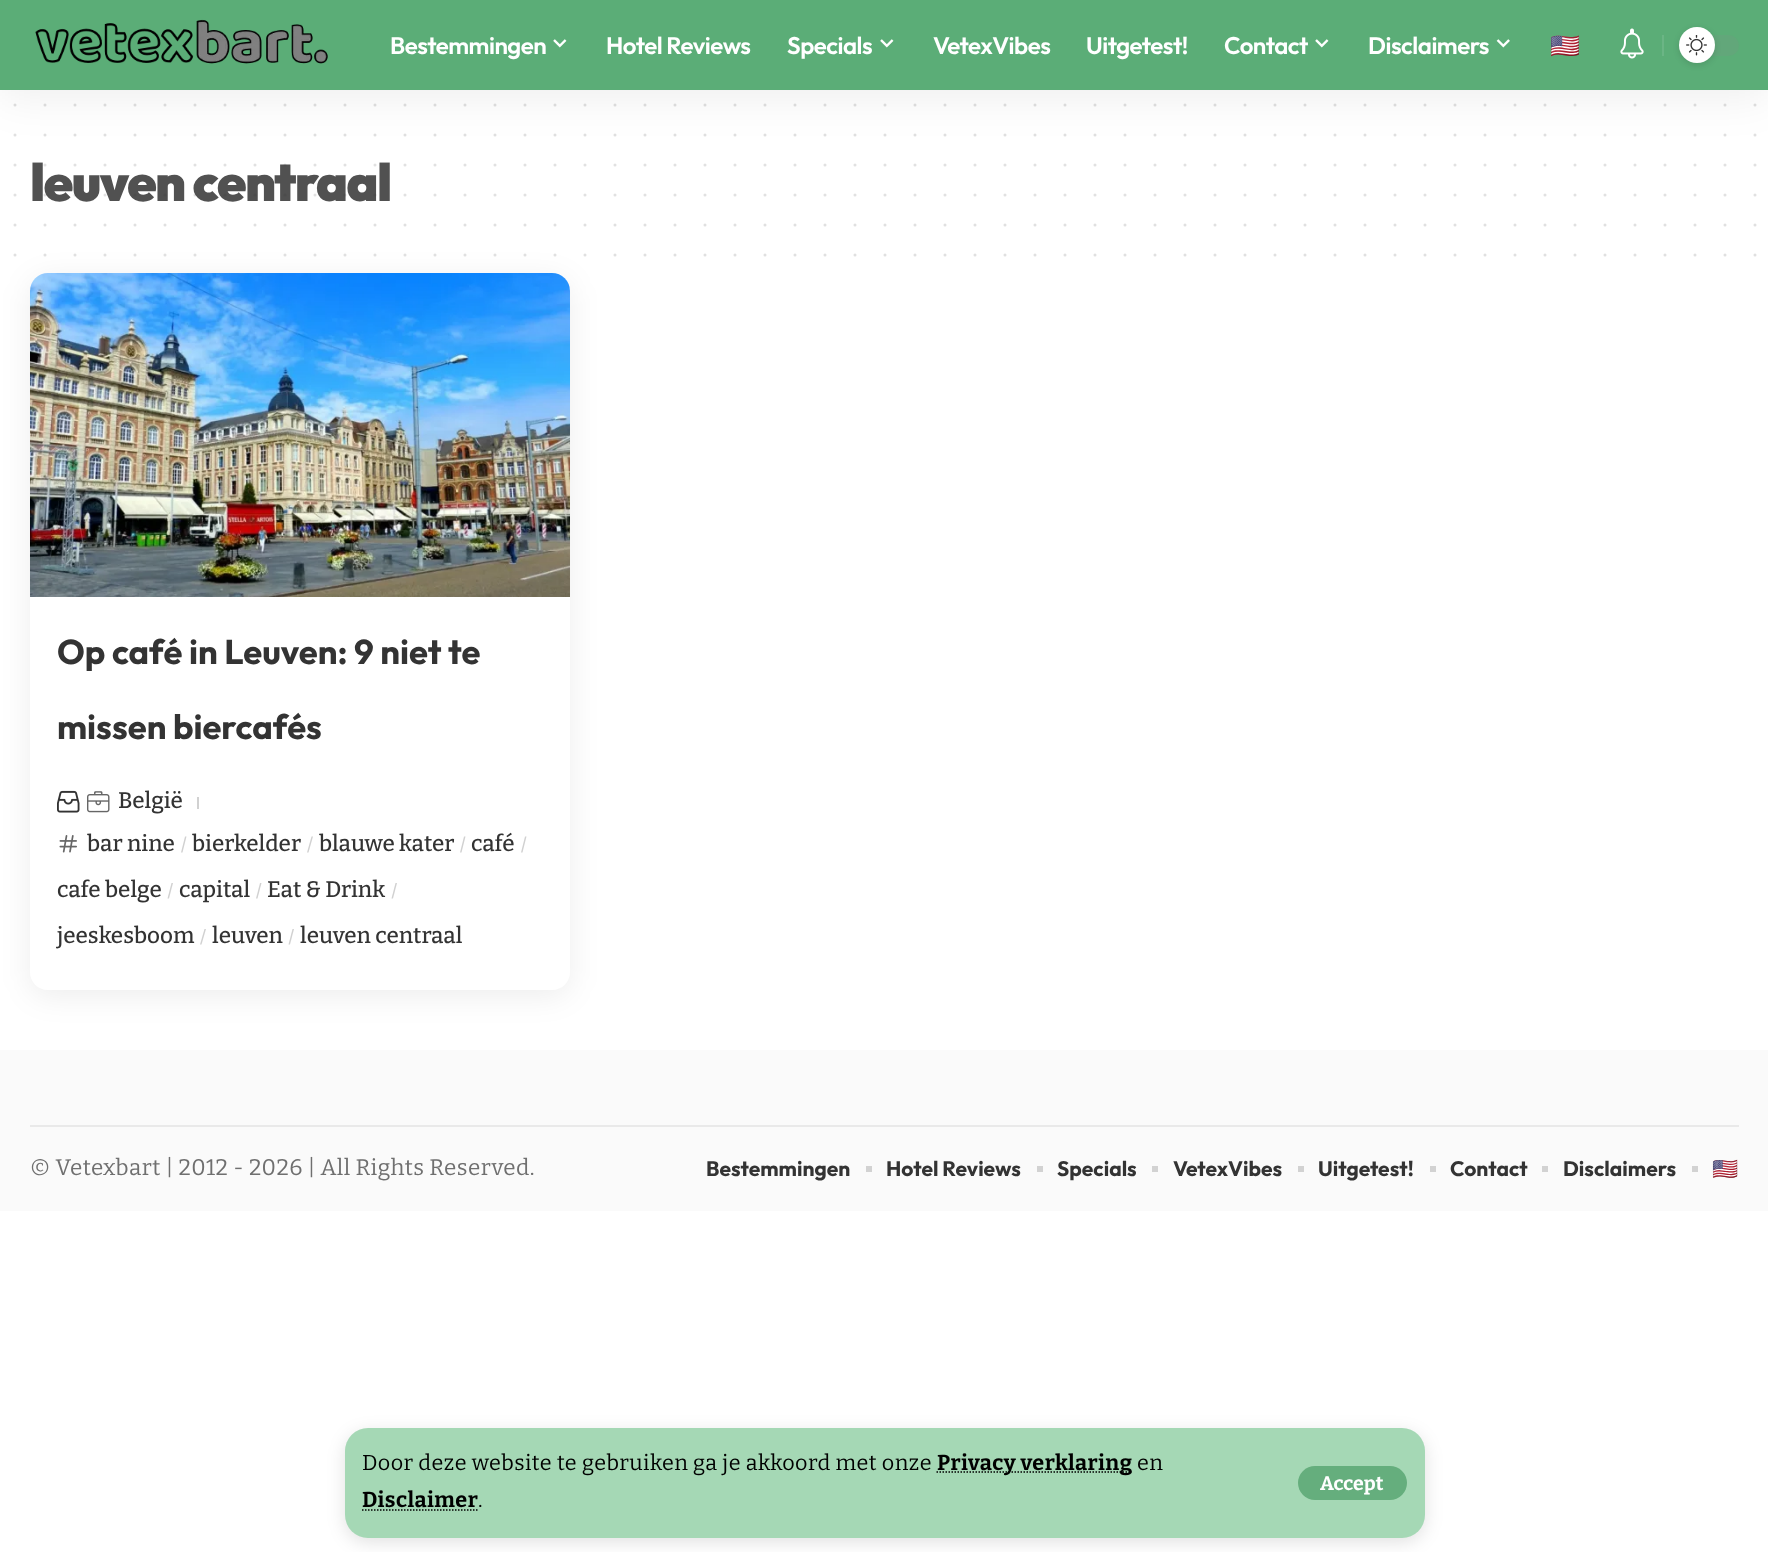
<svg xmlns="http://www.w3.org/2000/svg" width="1768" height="1552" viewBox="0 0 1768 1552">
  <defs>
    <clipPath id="clip1"><path d="M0 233H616V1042H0ZM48 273H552C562 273 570 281 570 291V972C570 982 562 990 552 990H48C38 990 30 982 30 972V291C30 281 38 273 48 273Z" clip-rule="evenodd"/></clipPath>
  </defs>
  <rect width="100%" height="100%" fill="#fff"/>
  <path d="M15 105H1755.3" fill="none" stroke="#e0e0e0" stroke-width="3" stroke-linecap="round" stroke-dasharray="0 30"/>
  <path d="M15 135H1755.3" fill="none" stroke="#e0e0e0" stroke-width="3" stroke-linecap="round" stroke-dasharray="0 30"/>
  <path d="M15 225H1755.3" fill="none" stroke="#e0e0e0" stroke-width="3" stroke-linecap="round" stroke-dasharray="0 30"/>
  <g clip-path="url(#clip1)">
    <rect x="30" y="279" width="540" height="717" rx="18" fill="#00000012" filter="blur(15px)"/>
  </g>
  <path d="M15 255H1755.3" fill="none" stroke="#e0e0e0" stroke-width="3" stroke-linecap="round" stroke-dasharray="0 30"/>
  <image x="30" y="273" width="540" height="324" href="img/1.png"/>
  <image x="57" y="790" width="23" height="23" href="img/2.png"/>
  <image x="87" y="791" width="23" height="22" href="img/3.png"/>
  <path d="M197 797h2v12H197z" fill="#d1d1d1"/>
  <image x="59" y="835" width="18" height="18" href="img/4.png"/>
  <path d="M185 836.5H186.5L182.5 852.5H181Z" fill="#d1d1d1"/>
  <path d="M311.5 836.5H313L308.5 852.5H307Z" fill="#d1d1d1"/>
  <path d="M464 836.5H465.5L461.5 852.5H460Z" fill="#d1d1d1"/>
  <path d="M525 836.5H526.5L522.5 852.5H521Z" fill="#d1d1d1"/>
  <path d="M171.5 883H173L169 898.5H167.5Z" fill="#d1d1d1"/>
  <path d="M260 883H261.5L257.5 898.5H256Z" fill="#d1d1d1"/>
  <path d="M395.5 883H397L393 898.5H391.5Z" fill="#d1d1d1"/>
  <path d="M204.5 929H206L201.5 944.5H200Z" fill="#d1d1d1"/>
  <path d="M292.5 929H294L290 944.5H288.5Z" fill="#d1d1d1"/>
  <rect x="345" y="1433" width="1080" height="109" rx="23" fill="#0000001f" filter="blur(9px)"/>
  <rect x="345" y="1428" width="1080" height="110" rx="23" fill="#a5d8b5"/>
  <path d="M936.5 1472H1132" fill="none" stroke="#000" stroke-width="1.5" stroke-dasharray="1.5 1.5"/>
  <path d="M362 1510H478.5" fill="none" stroke="#000" stroke-width="1.5" stroke-dasharray="1.5 1.5"/>
  <rect x="1298" y="1466" width="109" height="34" rx="17" fill="#65ae7d"/>
  <path d="M0 1050h1768v161H0z" fill="#fafafa"/>
  <path d="M30 1125h1709v2H30z" fill="#e9e9e9"/>
  <path d="M866 1166h6v6H866z" fill="#d2d2d2"/>
  <path d="M1037 1166h6v6H1037z" fill="#d2d2d2"/>
  <path d="M1152 1166h6v6H1152z" fill="#d2d2d2"/>
  <path d="M1298 1166h6v6H1298z" fill="#d2d2d2"/>
  <path d="M1430 1166h6v6H1430z" fill="#d2d2d2"/>
  <path d="M1542 1166h6v6H1542z" fill="#d2d2d2"/>
  <path d="M1692 1166h6v6H1692z" fill="#d2d2d2"/>
  <text x="30" y="201" font-family="Outfit" font-size="52.5" font-weight="900" letter-spacing="-1.5" fill="#333">leuven centraal</text>
  <path d="M32 162h358v40H32z" fill="#fcfcfc26"/>
  <path d="M15 195H1755.3" fill="none" stroke="#33333326" stroke-width="3" stroke-linecap="round" stroke-dasharray="0 30"/>
  <path d="M15 165H1755.3" fill="none" stroke="#33333326" stroke-width="3" stroke-linecap="round" stroke-dasharray="0 30"/>
  <g font-family="Outfit" font-size="34.5" font-weight="bold" fill="#333">
    <text x="57" y="664">Op café in Leuven: 9 niet te</text>
    <text x="57" y="739">missen biercafés</text>
  </g>
  <g font-family="Bitter" font-size="22.5" font-weight="500" fill="#333">
    <text x="118" y="808">België</text>
    <text x="87" y="851">bar nine</text>
    <text x="192" y="851">bierkelder</text>
    <text x="319" y="851">blauwe kater</text>
    <text x="471" y="851">café</text>
    <text x="57" y="897">cafe belge</text>
    <text x="179" y="897">capital</text>
    <text x="267" y="897">Eat &amp; Drink</text>
    <text x="57" y="943">jeeskesboom</text>
    <text x="212" y="943">leuven</text>
    <text x="300" y="943">leuven centraal</text>
  </g>
  <path d="M0 6h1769v90H0z" fill="#00000012" filter="blur(22.5px)"/>
  <path d="M0 0h1768v90H0z" fill="#5bad77"/>
  <image x="35" y="19" width="293" height="45" href="img/5.png"/>
  <text x="390" y="54" font-family="Outfit" font-size="24" font-weight="600" letter-spacing="-0.5" fill="#fff">Bestemmingen</text>
  <image x="553" y="39" width="14" height="9" href="img/6.png"/>
  <g font-family="Outfit" font-size="24" font-weight="600" letter-spacing="-0.5" fill="#fff">
    <text x="606" y="54">Hotel Reviews</text>
    <text x="787" y="54">Specials</text>
  </g>
  <image x="880" y="39" width="14" height="9" href="img/6.png"/>
  <g font-family="Outfit" font-size="24" font-weight="600" letter-spacing="-0.5" fill="#fff">
    <text x="933" y="54">VetexVibes</text>
    <text x="1086" y="54">Uitgetest!</text>
    <text x="1224" y="54">Contact</text>
  </g>
  <image x="1315" y="39" width="14" height="9" href="img/6.png"/>
  <text x="1368" y="54" font-family="Outfit" font-size="24" font-weight="600" letter-spacing="-0.5" fill="#fff">Disclaimers</text>
  <image x="1496" y="39" width="14" height="9" href="img/7.png"/>
  <text x="1550" y="54" font-family="Noto Color Emoji" font-size="24" font-weight="bold" letter-spacing="-0.5" fill="#fff">🇺🇸</text>
  <image x="1620" y="28" width="24" height="31" href="img/8.png"/>
  <path d="M1662 35h2v21H1662z" fill="#6bb585"/>
  <rect x="1679" y="35" width="60" height="21" rx="10.5" fill="#62a77a"/>
  <rect x="1679" y="29" width="36" height="36" rx="18" fill="#0000001f" filter="blur(3px)"/>
  <circle cx="1697" cy="45" r="18" fill="#fff"/>
  <image x="1686" y="35" width="21" height="21" href="img/9.png"/>
  <text x="362" y="1470" font-family="Bitter" font-size="21.6" letter-spacing="0.45" fill="#000">Door deze website te gebruiken ga je akkoord met onze</text>
  <text x="937" y="1470" font-family="Bitter" font-size="21.6" font-weight="bold" letter-spacing="0.45" fill="#000">Privacy verklaring</text>
  <text x="1137" y="1470" font-family="Bitter" font-size="21.6" letter-spacing="0.45" fill="#000">en</text>
  <text x="362" y="1507" font-family="Bitter" font-size="21.6" font-weight="bold" letter-spacing="0.45" fill="#000">Disclaimer</text>
  <text x="478" y="1507" font-family="Bitter" font-size="21.6" letter-spacing="0.45" fill="#000">.</text>
  <text x="1320" y="1490" font-family="Bitter" font-size="19.5" font-weight="bold" fill="#fff">Accept</text>
  <text x="30" y="1175" font-family="Bitter" font-size="22.5" letter-spacing="0.45" fill="#6f6f6f">© Vetexbart | 2012 - 2026 | All Rights Reserved.</text>
  <g font-family="Outfit" font-size="21" font-weight="bold" fill="#333">
    <text x="706" y="1176">Bestemmingen</text>
    <text x="886" y="1176">Hotel Reviews</text>
    <text x="1057" y="1176">Specials</text>
    <text x="1173" y="1176">VetexVibes</text>
    <text x="1318" y="1176">Uitgetest!</text>
    <text x="1450" y="1176">Contact</text>
    <text x="1563" y="1176">Disclaimers</text>
  </g>
  <text x="1712" y="1176" font-family="Noto Color Emoji" font-size="21" font-weight="bold" fill="#333">🇺🇸</text>
</svg>
